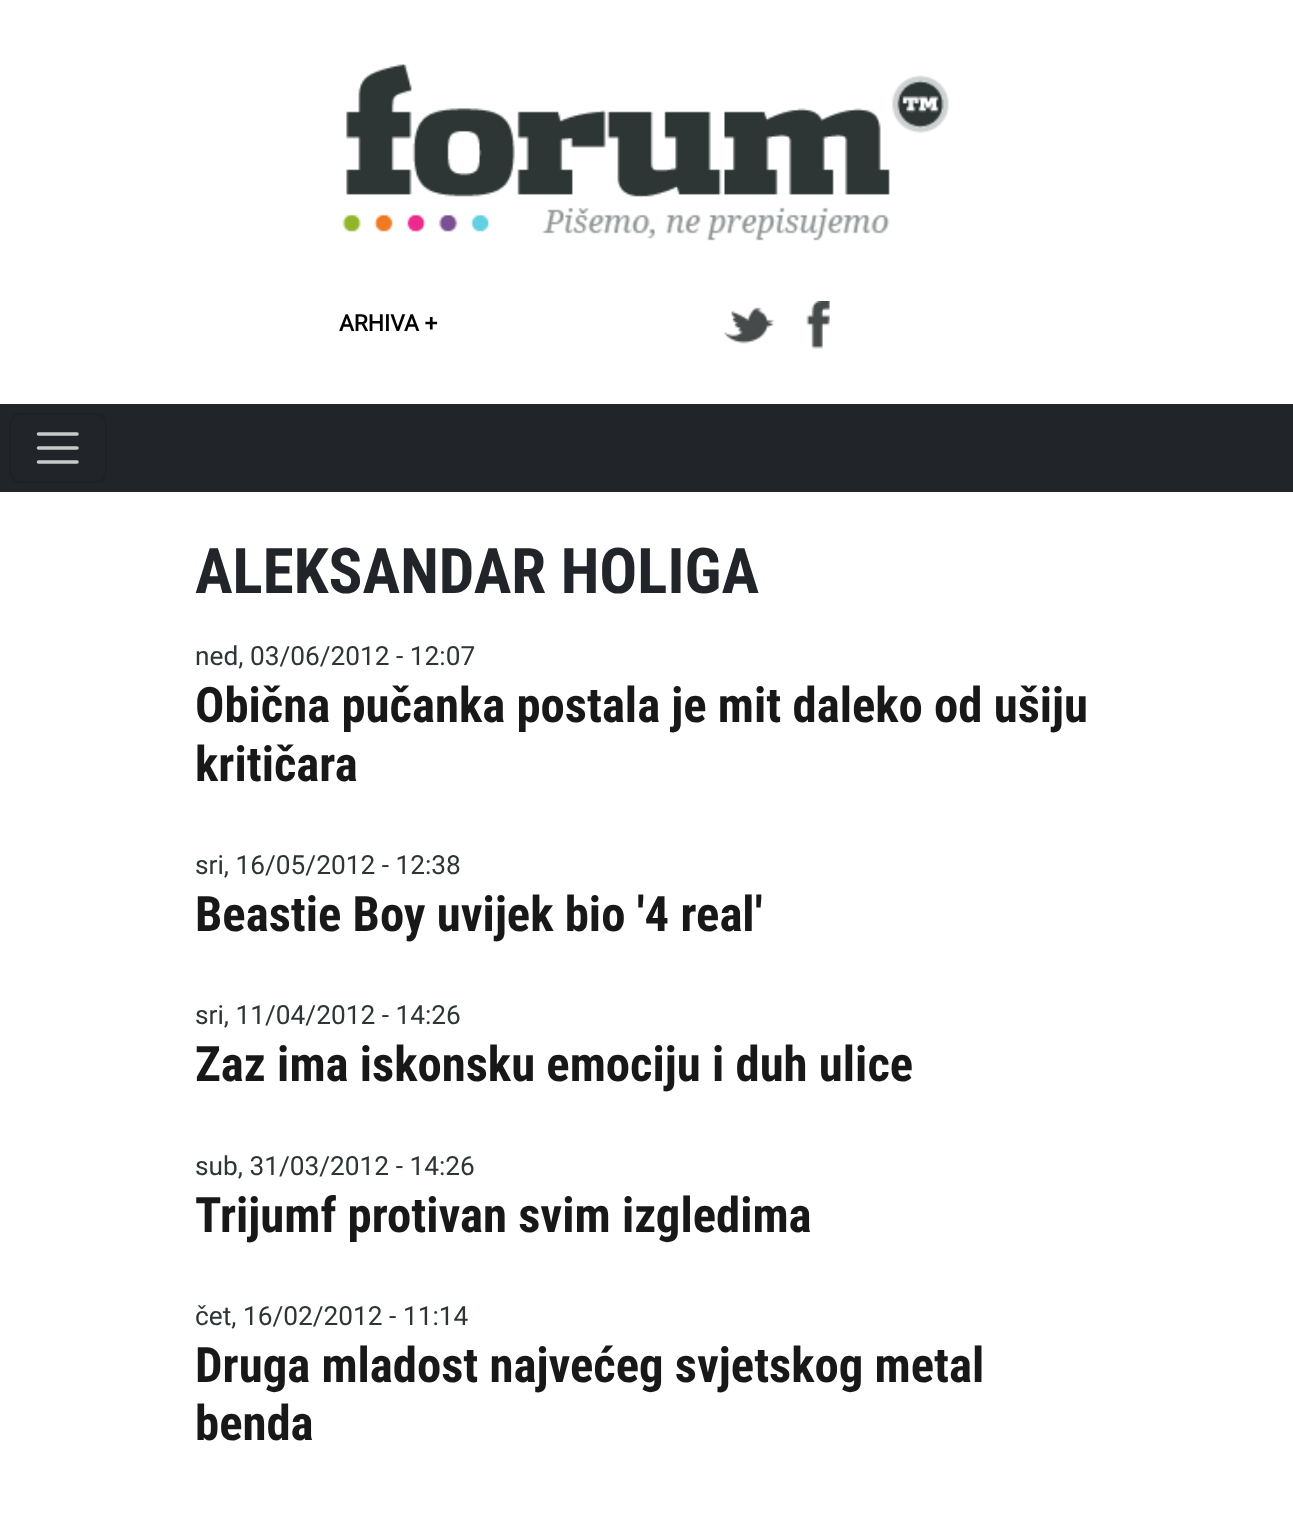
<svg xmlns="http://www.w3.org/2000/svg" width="1293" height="1525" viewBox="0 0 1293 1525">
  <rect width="100%" height="100%" fill="#fff"/>
  <image x="342" y="64" width="607" height="177" href="img/1.png"/>
  <image x="724" y="307" width="50" height="37" href="img/2.png"/>
  <image x="806" y="301" width="24" height="48" href="img/3.png"/>
  <path d="M0 404h1293v88H0z" fill="#212529"/>
  <rect x="10" y="414" width="96" height="68" rx="10" fill="none" stroke="#1e2125" stroke-width="2"/>
  <path d="M38.5 434H77M38.5 448H77M38.5 462H77" fill="none" stroke="#c8c9ca" stroke-width="3.5" stroke-linecap="round"/>
  <text x="339" y="331" font-family="Roboto" font-size="22.75" font-weight="bold" fill="#000">ARHIVA +</text>
  <text x="195" y="593" font-family="Roboto Condensed" font-size="63" font-weight="bold" fill="#212529">ALEKSANDAR HOLIGA</text>
  <text x="195" y="665" font-family="Roboto" font-size="26.25" fill="#2d3535">ned, 03/06/2012 - 12:07</text>
  <g font-family="Roboto Condensed" font-size="48.75" font-weight="bold" fill="#181818">
    <text x="195" y="722">Obična pučanka postala je mit daleko od ušiju</text>
    <text x="195" y="781">kritičara</text>
  </g>
  <text x="195" y="874" font-family="Roboto" font-size="26.25" fill="#2d3535">sri, 16/05/2012 - 12:38</text>
  <text x="195" y="931" font-family="Roboto Condensed" font-size="48.75" font-weight="bold" fill="#181818">Beastie Boy uvijek bio '4 real'</text>
  <text x="195" y="1024" font-family="Roboto" font-size="26.25" fill="#2d3535">sri, 11/04/2012 - 14:26</text>
  <text x="195" y="1081" font-family="Roboto Condensed" font-size="48.75" font-weight="bold" fill="#181818">Zaz ima iskonsku emociju i duh ulice</text>
  <text x="195" y="1175" font-family="Roboto" font-size="26.25" fill="#2d3535">sub, 31/03/2012 - 14:26</text>
  <text x="195" y="1232" font-family="Roboto Condensed" font-size="48.75" font-weight="bold" fill="#181818">Trijumf protivan svim izgledima</text>
  <text x="195" y="1325" font-family="Roboto" font-size="26.25" fill="#2d3535">čet, 16/02/2012 - 11:14</text>
  <g font-family="Roboto Condensed" font-size="48.75" font-weight="bold" fill="#181818">
    <text x="195" y="1382">Druga mladost najvećeg svjetskog metal</text>
    <text x="195" y="1440">benda</text>
  </g>
</svg>
